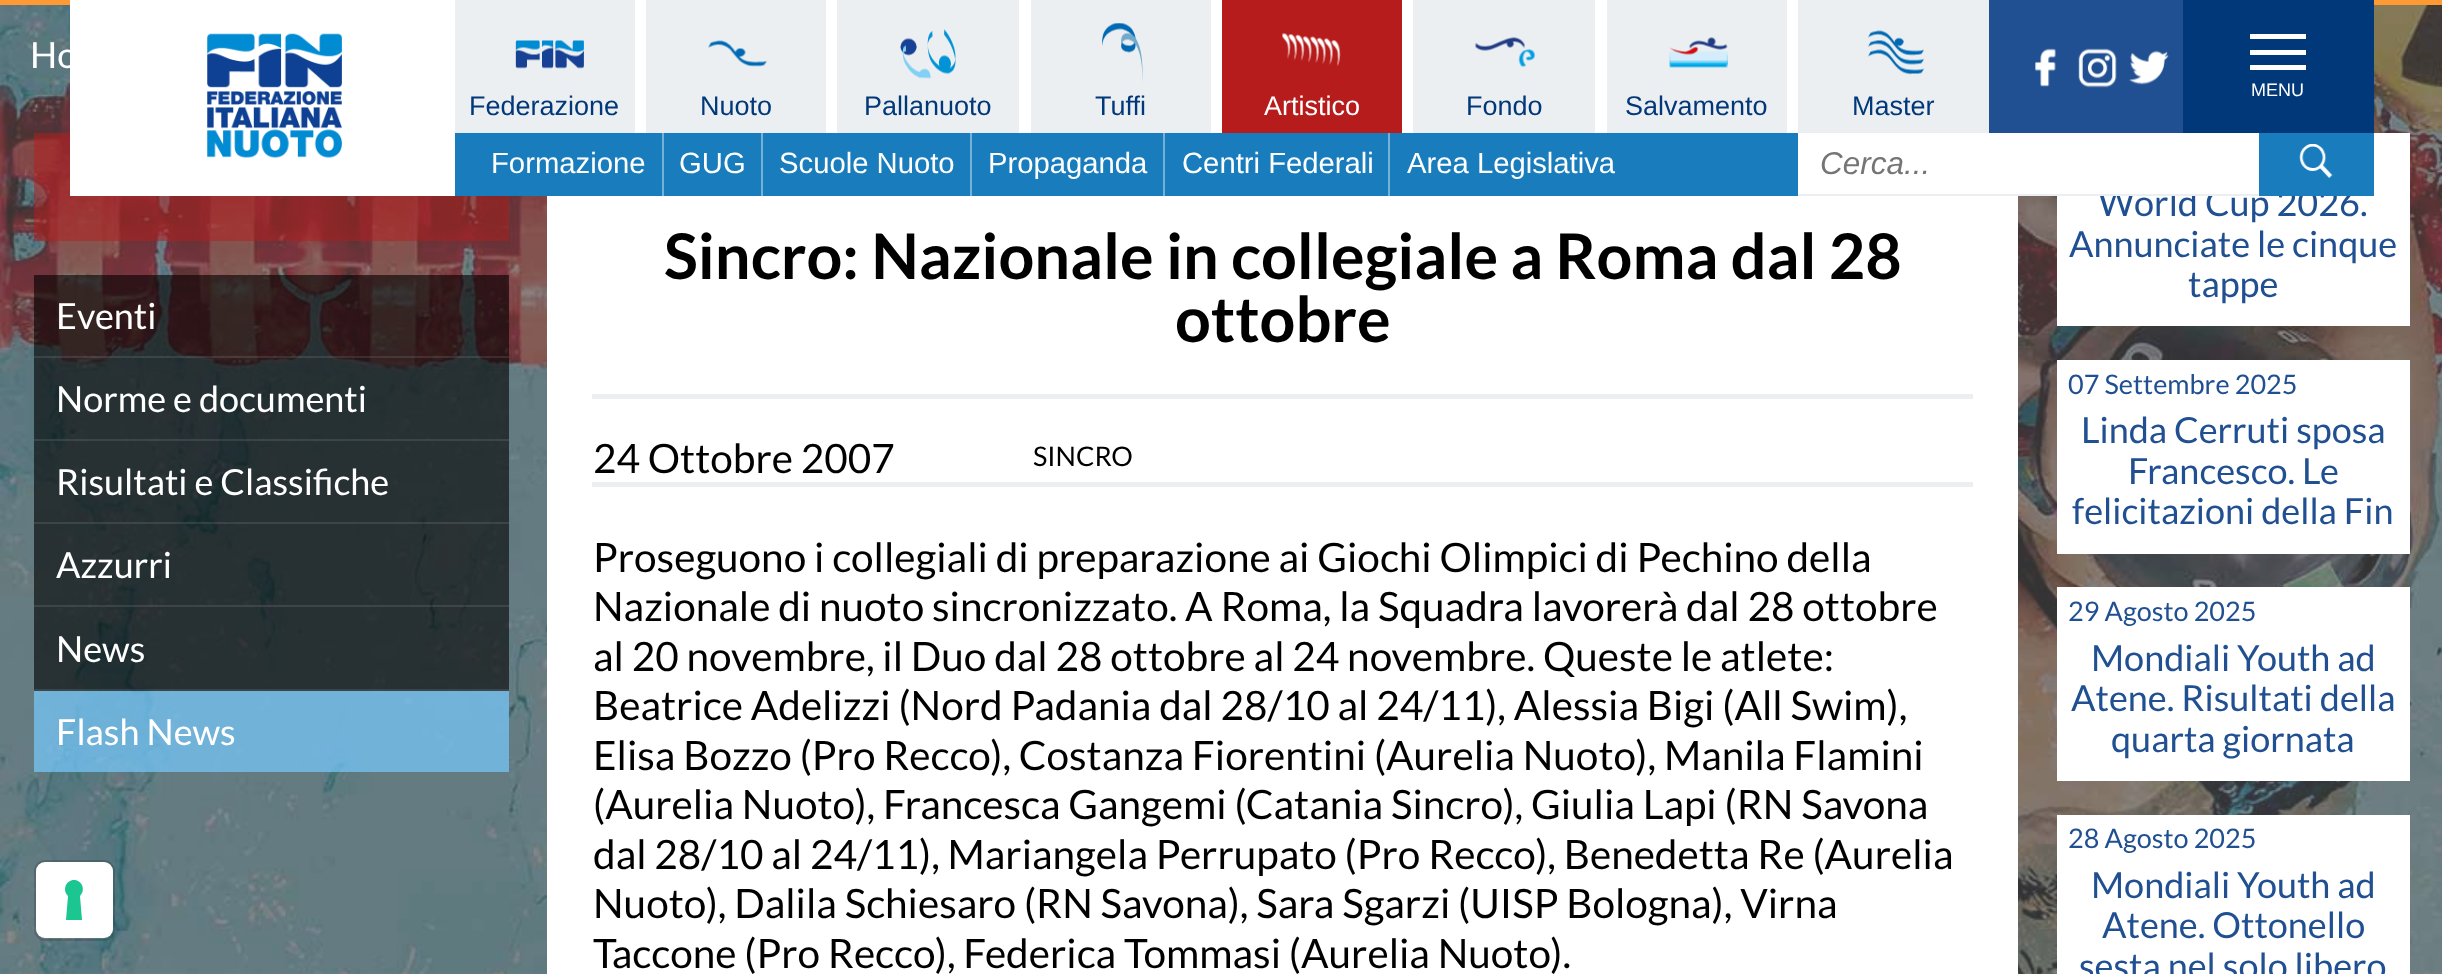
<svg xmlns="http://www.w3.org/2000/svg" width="2442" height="974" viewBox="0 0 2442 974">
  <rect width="100%" height="100%" fill="#fff"/>
  <image x="0" y="5" width="2442" height="969" href="img/1.png"/>
  <path d="M0 0h2442v5H0z" fill="#f93"/>
  <path d="M0 5h2442v94H0z" fill="#ffffff33"/>
  <path d="M0 99h2442v875H0z" fill="#ffffff33"/>
  <path d="M34 133h475v108H34z" fill="#b71c1c80"/>
  <path d="M34 275h475v83H34z" fill="#00000099"/>
  <path d="M34 356h475v2H34z" fill="#ffffff1a"/>
  <path d="M34 358h475v83H34z" fill="#00000099"/>
  <path d="M34 439h475v2H34z" fill="#ffffff1a"/>
  <path d="M34 441h475v83H34z" fill="#00000099"/>
  <path d="M34 522h475v2H34z" fill="#ffffff1a"/>
  <path d="M34 524h475v84H34z" fill="#00000099"/>
  <path d="M34 605h475v2H34z" fill="#ffffff1a"/>
  <path d="M34 608h475v83H34z" fill="#00000099"/>
  <path d="M34 689h475v2H34z" fill="#ffffff1a"/>
  <path d="M34 691h475v81H34z" fill="#77cbffb3"/>
  <path d="M547 196h1471v778H547z" fill="#fff"/>
  <path d="M592 394h1381v5H592z" fill="#eceff1"/>
  <path d="M592 482h1381v5H592z" fill="#eceff1"/>
  <path d="M2374 133h36v49H2374z" fill="#fff"/>
  <path d="M2057 182h353v144H2057z" fill="#fff"/>
  <path d="M2057 360h353v194H2057z" fill="#fff"/>
  <path d="M2057 587h353v194H2057z" fill="#fff"/>
  <path d="M2057 815h353v159H2057z" fill="#fff"/>
  <rect x="35" y="861" width="79" height="79" rx="10" fill="none" stroke="#00000026" stroke-width="2"/>
  <rect x="36" y="862" width="77" height="76" rx="9" fill="#fff"/>
  <path d="M74 880C82 880 86 890 80 896L82 920H66L68 896C62 890 66 880 74 880Z" fill="#1cc691" fill-rule="evenodd"/>
  <path d="M70 0h385v196H70z" fill="#fff"/>
  <image x="207" y="33" width="135" height="125" href="img/2.png"/>
  <path d="M1989 0h194v133H1989z" fill="#205091"/>
  <image x="2035" y="48" width="21" height="39" href="img/3.png"/>
  <image x="2078" y="48" width="39" height="40" href="img/4.png"/>
  <image x="2129" y="50" width="40" height="35" href="img/5.png"/>
  <path d="M2183 0h191v133H2183z" fill="#003879"/>
  <path d="M2250 34h56v5H2250z" fill="#fff"/>
  <path d="M2250 50h56v5H2250z" fill="#fff"/>
  <path d="M2250 65h56v5H2250z" fill="#fff"/>
  <path d="M455 0h180v133H455z" fill="#eceff1"/>
  <path d="M635 0h11v133H635z" fill="#fff"/>
  <image x="515" y="40" width="69" height="29" href="img/6.png"/>
  <path d="M646 0h180v133H646z" fill="#eceff1"/>
  <path d="M826 0h11v133H826z" fill="#fff"/>
  <image x="708" y="40" width="59" height="27" href="img/7.png"/>
  <path d="M837 0h182v133H837z" fill="#eceff1"/>
  <path d="M1019 0h12v133H1019z" fill="#fff"/>
  <image x="900" y="29" width="56" height="50" href="img/8.png"/>
  <path d="M1031 0h180v133H1031z" fill="#eceff1"/>
  <path d="M1211 0h11v133H1211z" fill="#fff"/>
  <image x="1102" y="23" width="41" height="59" href="img/9.png"/>
  <path d="M1222 0h180v133H1222z" fill="#b71c1c"/>
  <path d="M1402 0h11v133H1402z" fill="#fff"/>
  <image x="1282" y="33" width="59" height="33" href="img/10.png"/>
  <path d="M1413 0h182v133H1413z" fill="#eceff1"/>
  <path d="M1595 0h12v133H1595z" fill="#fff"/>
  <image x="1475" y="37" width="60" height="30" href="img/11.png"/>
  <path d="M1607 0h180v133H1607z" fill="#eceff1"/>
  <path d="M1787 0h11v133H1787z" fill="#fff"/>
  <image x="1669" y="37" width="59" height="31" href="img/12.png"/>
  <path d="M1798 0h191v133H1798z" fill="#eceff1"/>
  <image x="1868" y="30" width="56" height="45" href="img/13.png"/>
  <path d="M455 133h1343v63H455z" fill="#197dbd"/>
  <path d="M662 133h2v63H662z" fill="#75b1d7"/>
  <path d="M761 133h2v63H761z" fill="#75b1d7"/>
  <path d="M970 133h2v63H970z" fill="#75b1d7"/>
  <path d="M1163 133h2v63H1163z" fill="#75b1d7"/>
  <path d="M1388 133h2v63H1388z" fill="#75b1d7"/>
  <g font-family="Lato" font-size="36" fill="#fff">
    <text x="30" y="68">Ho</text>
    <text x="56" y="329">Eventi</text>
    <text x="56" y="412">Norme e documenti</text>
    <text x="56" y="495">Risultati e Classifiche</text>
    <text x="56" y="578">Azzurri</text>
    <text x="56" y="662">News</text>
    <text x="56" y="745">Flash News</text>
  </g>
  <g font-family="Lato" font-size="63" font-weight="bold" fill="#000">
    <text x="664" y="279">Sincro: Nazionale in collegiale a Roma dal 28</text>
    <text x="1175" y="342">ottobre</text>
  </g>
  <text x="593" y="473" font-family="Lato" font-size="40.5" fill="#000">24 Ottobre 2007</text>
  <text x="1033" y="466" font-family="Lato" font-size="27" fill="#000">SINCRO</text>
  <g font-family="Lato" font-size="40.5" fill="#000">
    <text x="593" y="572">Proseguono i collegiali di preparazione ai Giochi Olimpici di Pechino della</text>
    <text x="593" y="621">Nazionale di nuoto sincronizzato. A Roma, la Squadra lavorerà dal 28 ottobre</text>
    <text x="593" y="671">al 20 novembre, il Duo dal 28 ottobre al 24 novembre. Queste le atlete:</text>
    <text x="593" y="720">Beatrice Adelizzi (Nord Padania dal 28/10 al 24/11), Alessia Bigi (All Swim),</text>
    <text x="593" y="770">Elisa Bozzo (Pro Recco), Costanza Fiorentini (Aurelia Nuoto), Manila Flamini</text>
    <text x="593" y="819">(Aurelia Nuoto), Francesca Gangemi (Catania Sincro), Giulia Lapi (RN Savona</text>
    <text x="593" y="869">dal 28/10 al 24/11), Mariangela Perrupato (Pro Recco), Benedetta Re (Aurelia</text>
    <text x="593" y="918">Nuoto), Dalila Schiesaro (RN Savona), Sara Sgarzi (UISP Bologna), Virna</text>
    <text x="593" y="968">Taccone (Pro Recco), Federica Tommasi (Aurelia Nuoto).</text>
  </g>
  <g font-family="Lato" font-size="36" fill="#205091">
    <text x="2098" y="216">World Cup 2026.</text>
    <text x="2069" y="257">Annunciate le cinque</text>
    <text x="2188" y="297">tappe</text>
  </g>
  <text x="2068" y="394" font-family="Lato" font-size="27" fill="#205091">07 Settembre 2025</text>
  <g font-family="Lato" font-size="36" fill="#205091">
    <text x="2081" y="443">Linda Cerruti sposa</text>
    <text x="2128" y="484">Francesco. Le</text>
    <text x="2072" y="524">felicitazioni della Fin</text>
  </g>
  <text x="2068" y="621" font-family="Lato" font-size="27" fill="#205091">29 Agosto 2025</text>
  <g font-family="Lato" font-size="36" fill="#205091">
    <text x="2091" y="671">Mondiali Youth ad</text>
    <text x="2071" y="711">Atene. Risultati della</text>
    <text x="2111" y="752">quarta giornata</text>
  </g>
  <text x="2068" y="848" font-family="Lato" font-size="27" fill="#205091">28 Agosto 2025</text>
  <g font-family="Lato" font-size="36" fill="#205091">
    <text x="2091" y="898">Mondiali Youth ad</text>
    <text x="2102" y="938">Atene. Ottonello</text>
    <text x="2079" y="979">sesta nel solo libero</text>
  </g>
  <text x="2251" y="96" font-family="Liberation Sans" font-size="18" fill="#fff">MENU</text>
  <g font-family="Liberation Sans" font-size="27" fill="#003879">
    <text x="469" y="115">Federazione</text>
    <text x="700" y="115">Nuoto</text>
    <text x="864" y="115">Pallanuoto</text>
    <text x="1095" y="115">Tuffi</text>
  </g>
  <text x="1264" y="115" font-family="Liberation Sans" font-size="27" fill="#fff">Artistico</text>
  <g font-family="Liberation Sans" font-size="27" fill="#003879">
    <text x="1466" y="115">Fondo</text>
    <text x="1625" y="115">Salvamento</text>
    <text x="1852" y="115">Master</text>
  </g>
  <path d="M1798 133h461v61H1798z" fill="#fff"/>
  <g font-family="Liberation Sans" font-size="29.25" fill="#fff">
    <text x="491" y="173">Formazione</text>
    <text x="679" y="173">GUG</text>
    <text x="779" y="173">Scuole Nuoto</text>
    <text x="988" y="173">Propaganda</text>
    <text x="1182" y="173">Centri Federali</text>
    <text x="1407" y="173">Area Legislativa</text>
  </g>
  <path d="M1798 194h461v2H1798z" fill="#eceff1"/>
  <text x="1820" y="174" font-family="Liberation Sans" font-size="31.5" font-style="italic" fill="#757575">Cerca...</text>
  <path d="M2259 133h115v63H2259z" fill="#197dbd"/>
  <image x="2299" y="144" width="34" height="34" href="img/14.png"/>
</svg>
